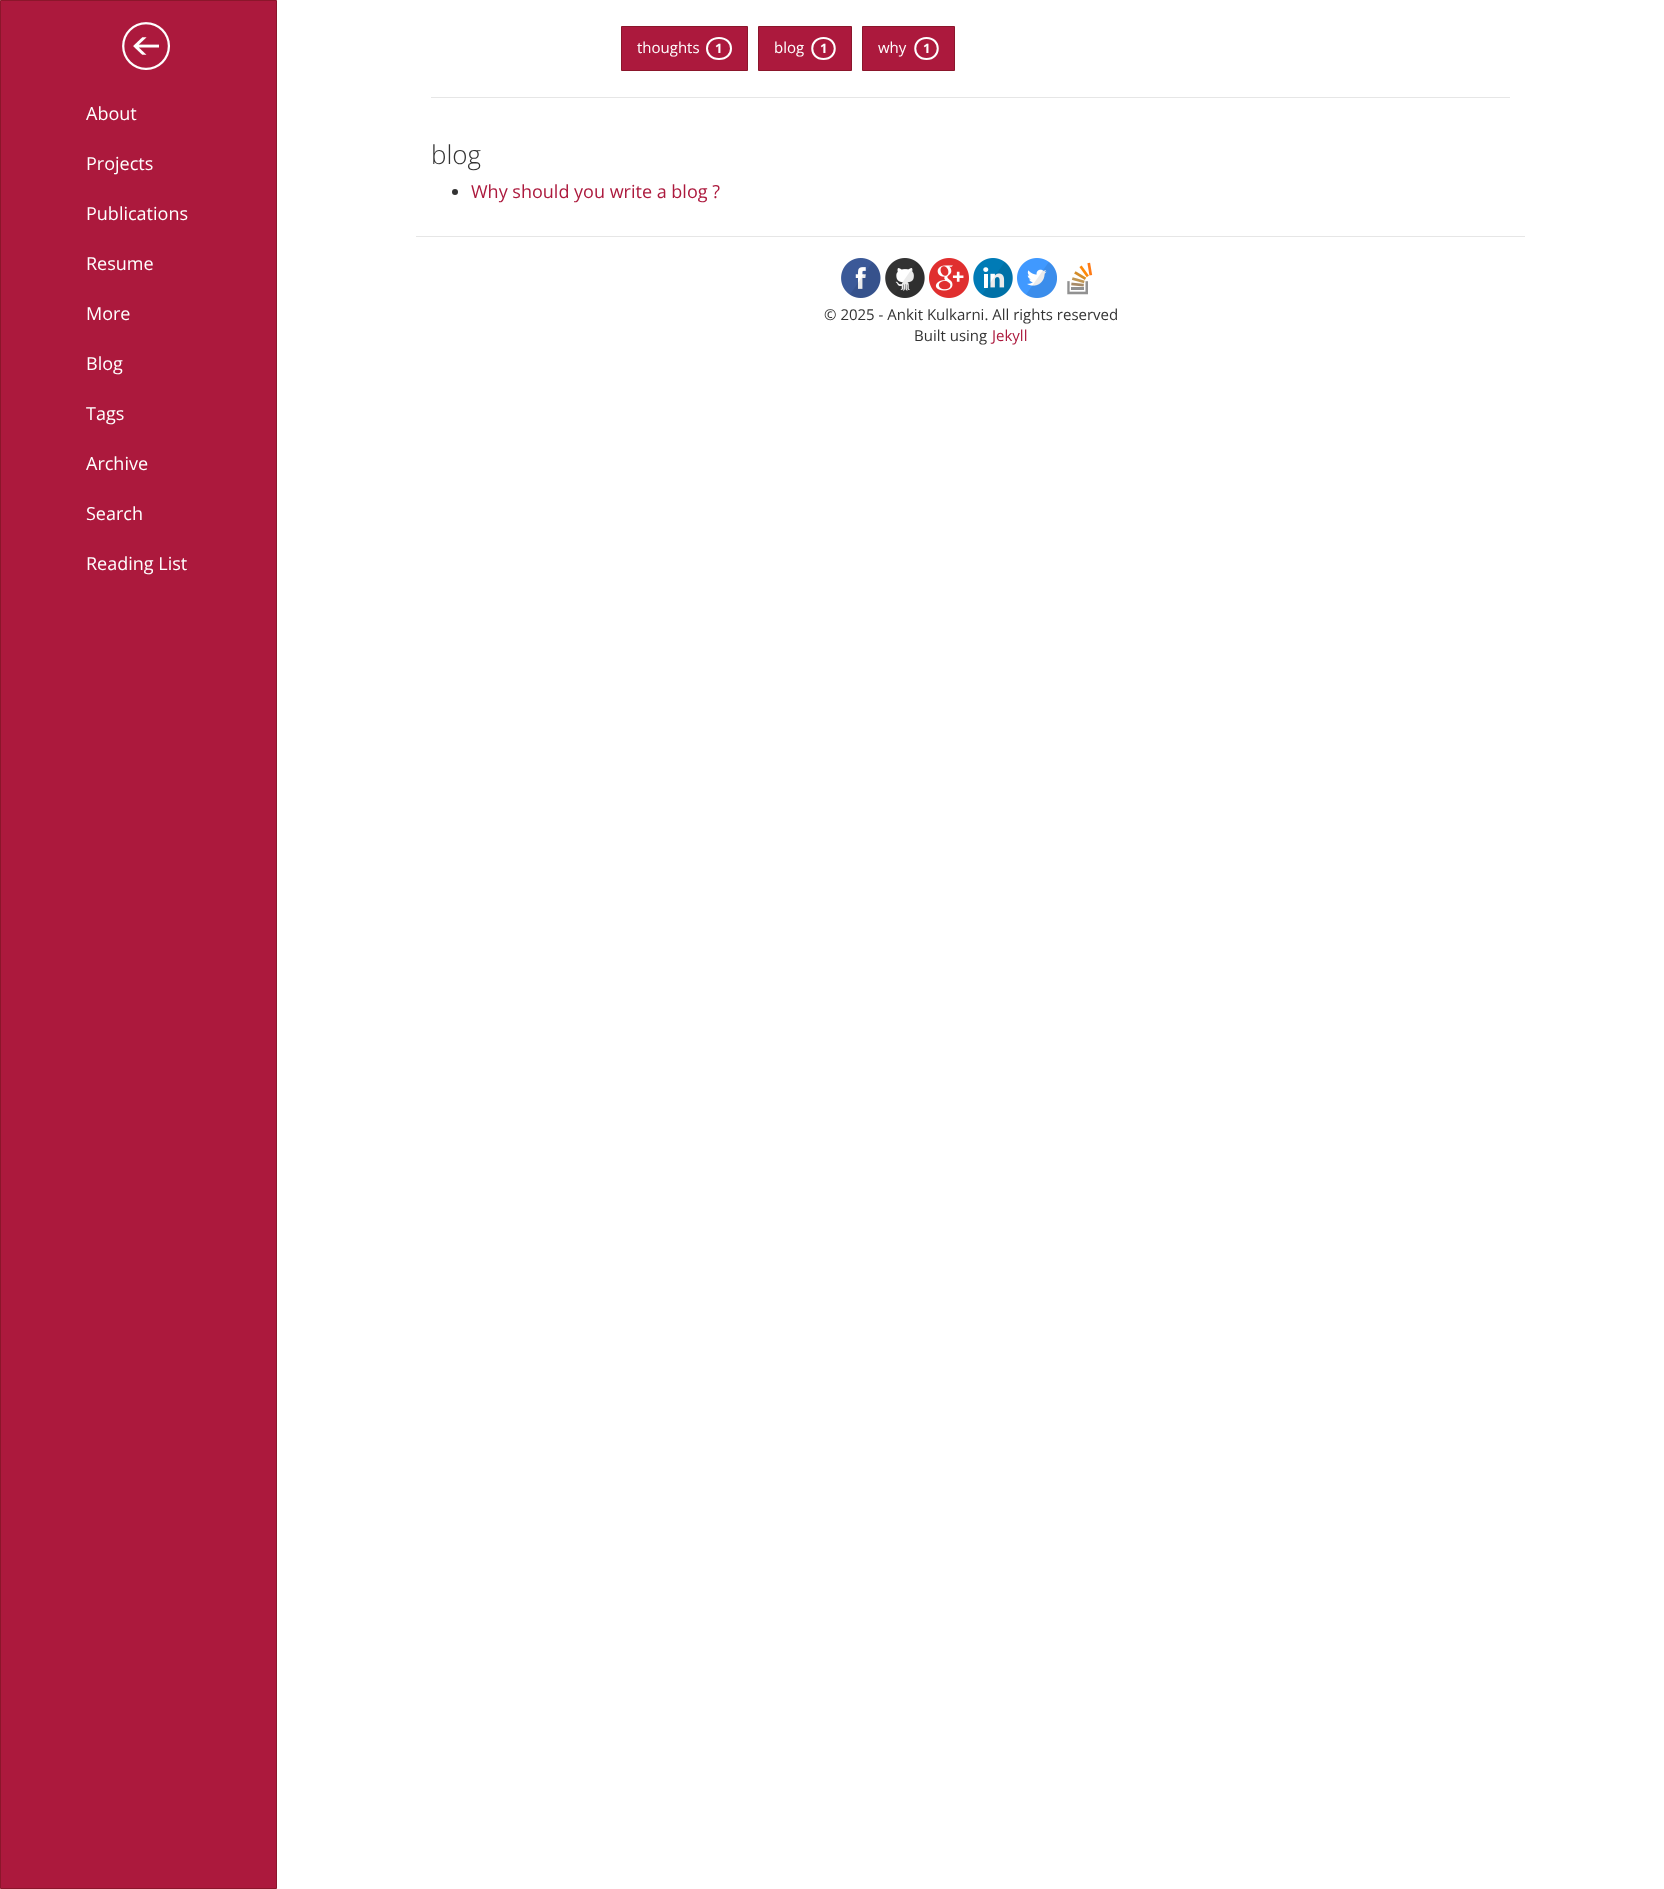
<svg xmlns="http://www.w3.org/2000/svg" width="1664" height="1889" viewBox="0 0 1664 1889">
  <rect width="100%" height="100%" fill="#fff"/>
  <path d="M0.5 0.5h276v1888H0.5z" fill="#ac193d" stroke="#8b162b"/>
  <image x="122" y="22" width="48" height="48" href="img/1.png"/>
  <path d="M621.5 26.5h126v44H621.5z" fill="#ac193d" stroke="#8b162b"/>
  <path d="M719 38C735 38 735 59 719 59C703 59 703 38 719 38Z" fill="none" stroke="#fff" stroke-width="2"/>
  <path d="M758.5 26.5h93v44H758.5z" fill="#ac193d" stroke="#8b162b"/>
  <path d="M823.5 38C838.5 38 838.5 59 823.5 59C808.5 59 808.5 38 823.5 38Z" fill="none" stroke="#fff" stroke-width="2"/>
  <path d="M862.5 26.5h92v44H862.5z" fill="#ac193d" stroke="#8b162b"/>
  <path d="M926.5 38C941.5 38 941.5 59 926.5 59C911.5 59 911.5 38 926.5 38Z" fill="none" stroke="#fff" stroke-width="2"/>
  <path d="M431 97h1079v1H431z" fill="#e6e6e6"/>
  <circle cx="455" cy="192" r="3" fill="#333"/>
  <path d="M416 236h1109v1H416z" fill="#e6e6e6"/>
  <image x="841" y="258" width="40" height="40" href="img/2.png"/>
  <image x="885" y="258" width="40" height="40" href="img/3.png"/>
  <image x="929" y="258" width="40" height="40" href="img/4.png"/>
  <image x="973" y="258" width="40" height="40" href="img/5.png"/>
  <image x="1017" y="258" width="40" height="40" href="img/6.png"/>
  <image x="1067" y="262" width="26" height="33" href="img/7.png"/>
  <g font-family="Open Sans" font-size="18" fill="#fff">
    <text x="86" y="120">About</text>
    <text x="86" y="170">Projects</text>
    <text x="86" y="220">Publications</text>
    <text x="86" y="270">Resume</text>
    <text x="86" y="320">More</text>
    <text x="86" y="370">Blog</text>
    <text x="86" y="420">Tags</text>
    <text x="86" y="470">Archive</text>
    <text x="86" y="520">Search</text>
    <text x="86" y="570">Reading List</text>
  </g>
  <text x="637" y="53" font-family="Open Sans" font-size="15" fill="#fff">thoughts</text>
  <text x="715" y="53" font-family="Open Sans" font-size="13" font-weight="bold" fill="#fff">1</text>
  <text x="774" y="53" font-family="Open Sans" font-size="15" fill="#fff">blog</text>
  <text x="820" y="53" font-family="Open Sans" font-size="13" font-weight="bold" fill="#fff">1</text>
  <text x="878" y="53" font-family="Open Sans" font-size="15" fill="#fff">why</text>
  <text x="923" y="53" font-family="Open Sans" font-size="13" font-weight="bold" fill="#fff">1</text>
  <text x="431" y="164" font-family="Open Sans" font-size="26" font-weight="300" fill="#333">blog</text>
  <text x="471" y="198" font-family="Open Sans" font-size="18" fill="#ac193d">Why should you write a blog ?</text>
  <g font-family="Open Sans" font-size="15" fill="#333">
    <text x="824" y="320">© 2025 - Ankit Kulkarni. All rights reserved</text>
    <text x="914" y="341">Built using</text>
  </g>
  <text x="992" y="341" font-family="Open Sans" font-size="15" fill="#ac193d">Jekyll</text>
</svg>
